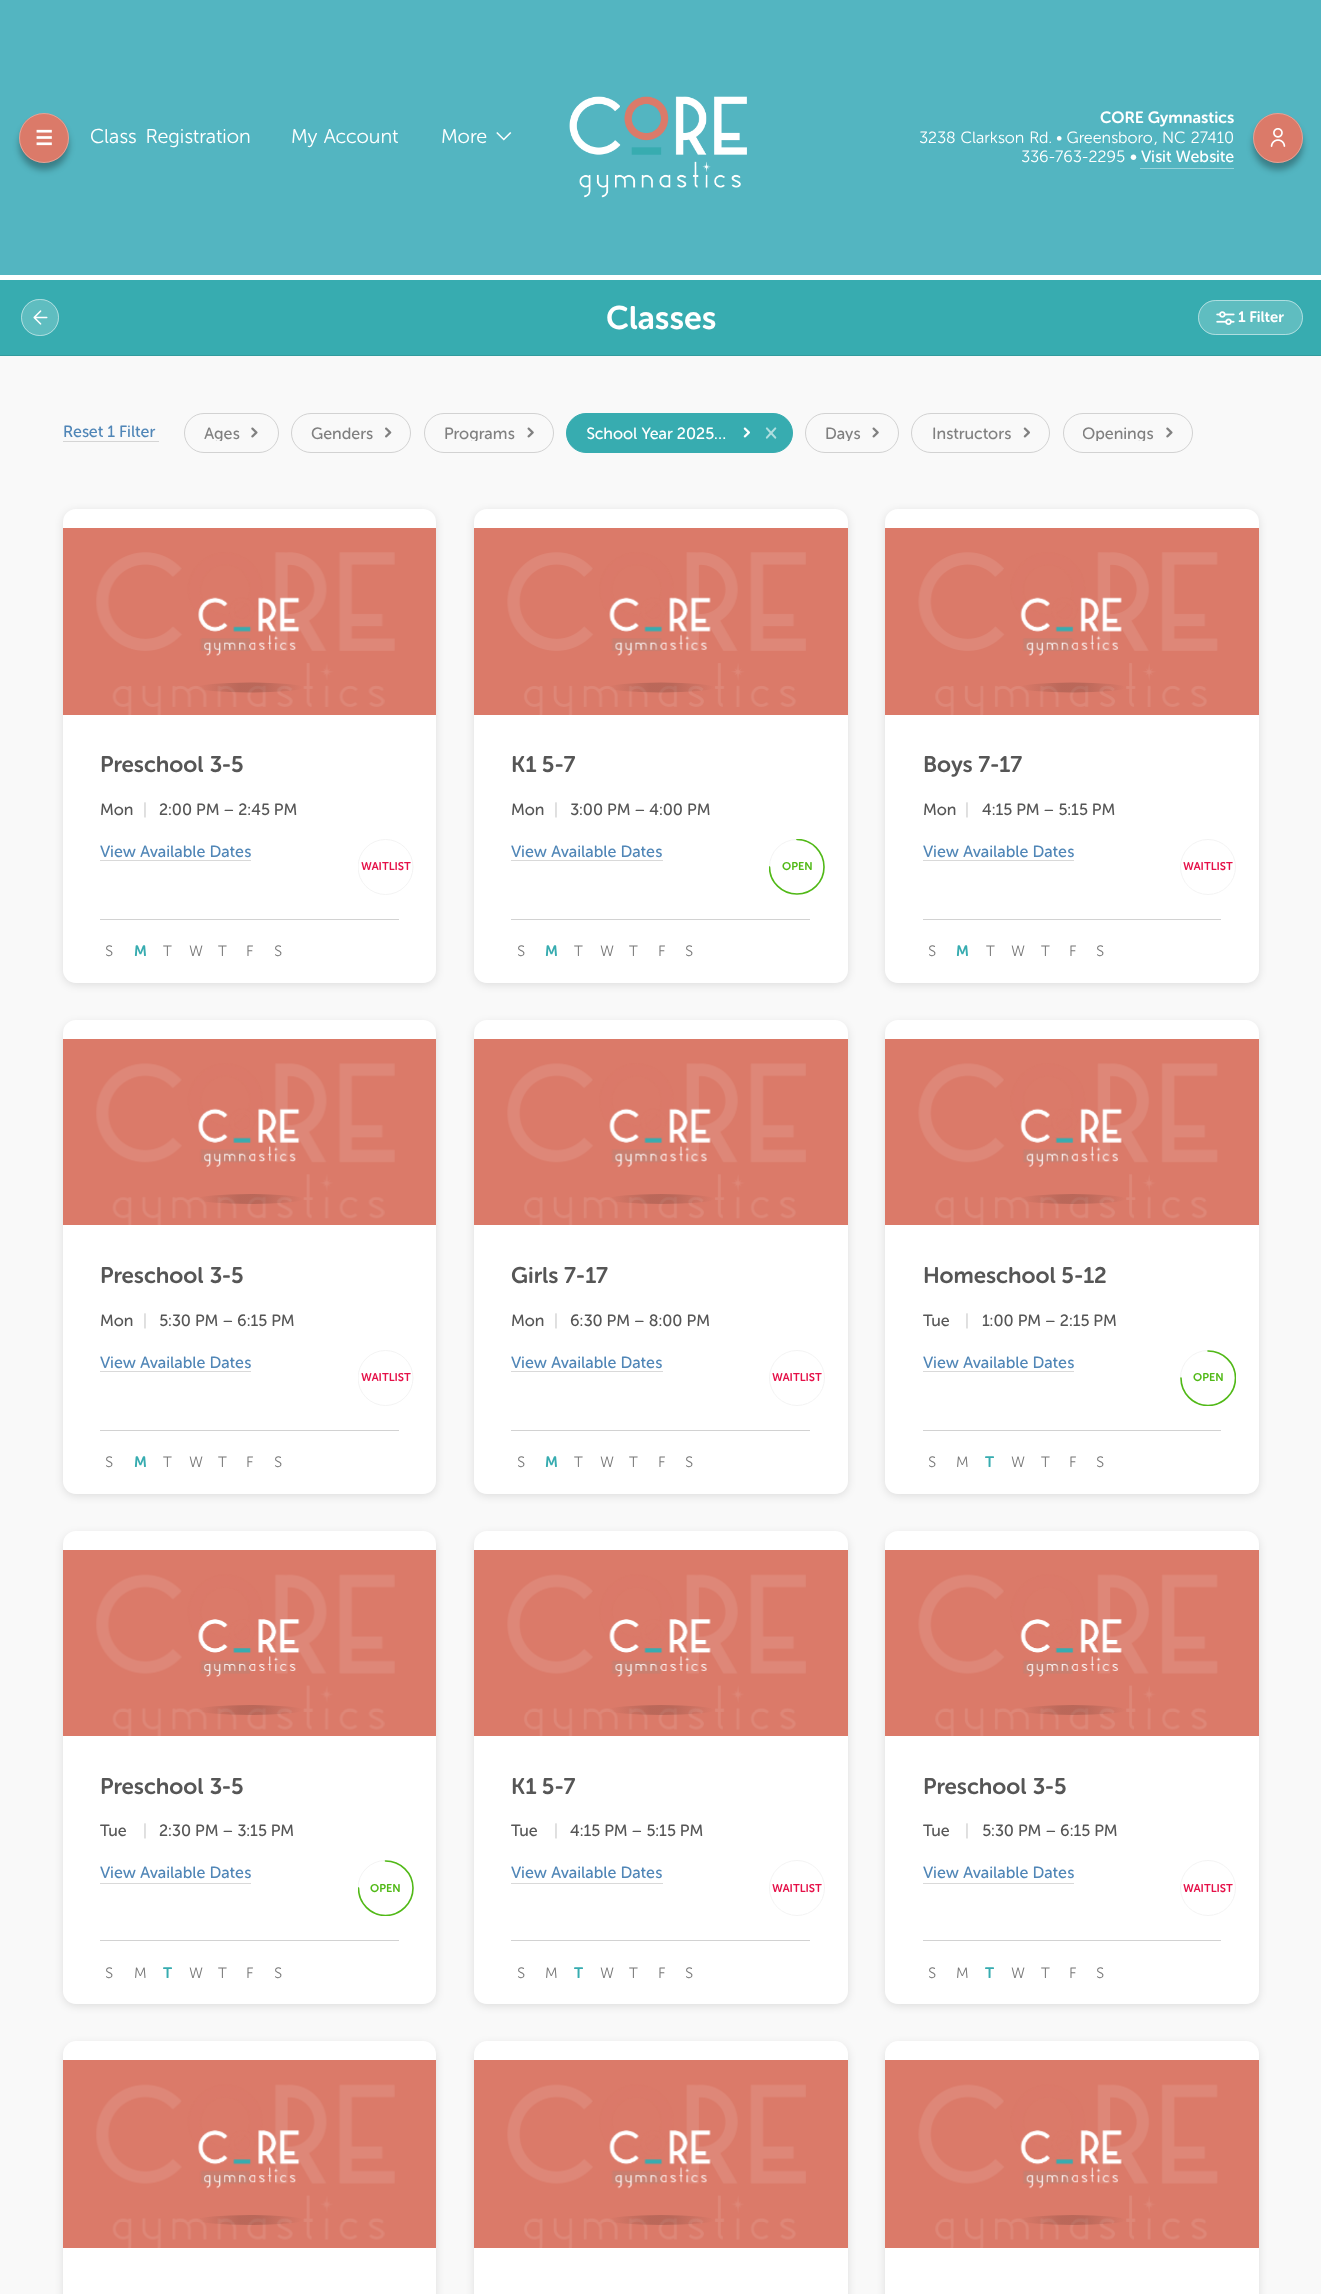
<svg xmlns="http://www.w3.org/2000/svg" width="1321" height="2294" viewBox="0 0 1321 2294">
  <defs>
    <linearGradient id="g1" gradientUnits="userSpaceOnUse" x1="197" y1="688" x2="303" y2="688"><stop offset="0" stop-color="#6e3d35" stop-opacity="0"/><stop offset="0.4" stop-color="#6e3d35" stop-opacity="0.3"/><stop offset="0.6" stop-color="#6e3d35" stop-opacity="0.3"/><stop offset="1" stop-color="#6e3d35" stop-opacity="0"/></linearGradient>
    <clipPath id="clip1"><path d="M358 839h56v56H358z"/></clipPath>
    <linearGradient id="g2" gradientUnits="userSpaceOnUse" x1="608" y1="688" x2="714" y2="688"><stop offset="0" stop-color="#6e3d35" stop-opacity="0"/><stop offset="0.4" stop-color="#6e3d35" stop-opacity="0.3"/><stop offset="0.6" stop-color="#6e3d35" stop-opacity="0.3"/><stop offset="1" stop-color="#6e3d35" stop-opacity="0"/></linearGradient>
    <clipPath id="clip2"><path d="M769 839h56v56H769z"/></clipPath>
    <linearGradient id="g3" gradientUnits="userSpaceOnUse" x1="1019" y1="688" x2="1126" y2="688"><stop offset="0" stop-color="#6e3d35" stop-opacity="0"/><stop offset="0.4" stop-color="#6e3d35" stop-opacity="0.3"/><stop offset="0.6" stop-color="#6e3d35" stop-opacity="0.3"/><stop offset="1" stop-color="#6e3d35" stop-opacity="0"/></linearGradient>
    <linearGradient id="g4" gradientUnits="userSpaceOnUse" x1="197" y1="1199" x2="303" y2="1199"><stop offset="0" stop-color="#6e3d35" stop-opacity="0"/><stop offset="0.4" stop-color="#6e3d35" stop-opacity="0.3"/><stop offset="0.6" stop-color="#6e3d35" stop-opacity="0.3"/><stop offset="1" stop-color="#6e3d35" stop-opacity="0"/></linearGradient>
    <clipPath id="clip3"><path d="M358 1350h56v56H358z"/></clipPath>
    <linearGradient id="g5" gradientUnits="userSpaceOnUse" x1="608" y1="1199" x2="714" y2="1199"><stop offset="0" stop-color="#6e3d35" stop-opacity="0"/><stop offset="0.4" stop-color="#6e3d35" stop-opacity="0.3"/><stop offset="0.6" stop-color="#6e3d35" stop-opacity="0.3"/><stop offset="1" stop-color="#6e3d35" stop-opacity="0"/></linearGradient>
    <linearGradient id="g6" gradientUnits="userSpaceOnUse" x1="1019" y1="1199" x2="1126" y2="1199"><stop offset="0" stop-color="#6e3d35" stop-opacity="0"/><stop offset="0.4" stop-color="#6e3d35" stop-opacity="0.3"/><stop offset="0.6" stop-color="#6e3d35" stop-opacity="0.3"/><stop offset="1" stop-color="#6e3d35" stop-opacity="0"/></linearGradient>
    <clipPath id="clip4"><path d="M1180 1350h56v56H1180z"/></clipPath>
    <linearGradient id="g7" gradientUnits="userSpaceOnUse" x1="197" y1="1710" x2="303" y2="1710"><stop offset="0" stop-color="#6e3d35" stop-opacity="0"/><stop offset="0.4" stop-color="#6e3d35" stop-opacity="0.3"/><stop offset="0.6" stop-color="#6e3d35" stop-opacity="0.3"/><stop offset="1" stop-color="#6e3d35" stop-opacity="0"/></linearGradient>
    <clipPath id="clip5"><path d="M358 1860h56v56H358z"/></clipPath>
    <linearGradient id="g8" gradientUnits="userSpaceOnUse" x1="608" y1="1710" x2="714" y2="1710"><stop offset="0" stop-color="#6e3d35" stop-opacity="0"/><stop offset="0.4" stop-color="#6e3d35" stop-opacity="0.3"/><stop offset="0.6" stop-color="#6e3d35" stop-opacity="0.3"/><stop offset="1" stop-color="#6e3d35" stop-opacity="0"/></linearGradient>
    <linearGradient id="g9" gradientUnits="userSpaceOnUse" x1="1019" y1="1710" x2="1126" y2="1710"><stop offset="0" stop-color="#6e3d35" stop-opacity="0"/><stop offset="0.4" stop-color="#6e3d35" stop-opacity="0.3"/><stop offset="0.6" stop-color="#6e3d35" stop-opacity="0.3"/><stop offset="1" stop-color="#6e3d35" stop-opacity="0"/></linearGradient>
    <linearGradient id="g10" gradientUnits="userSpaceOnUse" x1="197" y1="2220" x2="303" y2="2220"><stop offset="0" stop-color="#6e3d35" stop-opacity="0"/><stop offset="0.4" stop-color="#6e3d35" stop-opacity="0.3"/><stop offset="0.6" stop-color="#6e3d35" stop-opacity="0.3"/><stop offset="1" stop-color="#6e3d35" stop-opacity="0"/></linearGradient>
    <linearGradient id="g11" gradientUnits="userSpaceOnUse" x1="608" y1="2220" x2="714" y2="2220"><stop offset="0" stop-color="#6e3d35" stop-opacity="0"/><stop offset="0.4" stop-color="#6e3d35" stop-opacity="0.3"/><stop offset="0.6" stop-color="#6e3d35" stop-opacity="0.3"/><stop offset="1" stop-color="#6e3d35" stop-opacity="0"/></linearGradient>
    <linearGradient id="g12" gradientUnits="userSpaceOnUse" x1="1019" y1="2220" x2="1126" y2="2220"><stop offset="0" stop-color="#6e3d35" stop-opacity="0"/><stop offset="0.4" stop-color="#6e3d35" stop-opacity="0.3"/><stop offset="0.6" stop-color="#6e3d35" stop-opacity="0.3"/><stop offset="1" stop-color="#6e3d35" stop-opacity="0"/></linearGradient>
    <clipPath id="clip6"><path d="M204 425h41v16H204z"/></clipPath>
    <clipPath id="clip7"><path d="M444 425h77v16H444z"/></clipPath>
    <clipPath id="clip8"><rect x="586" y="425" width="152" height="16" rx="8"/></clipPath>
    <clipPath id="clip9"><path d="M825 425h41v16H825z"/></clipPath>
    <clipPath id="clip10"><path d="M1083 425h77v16H1083z"/></clipPath>
  </defs>
  <rect width="100%" height="100%" fill="#36a8b7"/>
  <image x="0" y="0" width="1321" height="275" href="img/1.png"/>
  <rect x="19" y="120" width="50" height="50" rx="25" fill="#0000004d" filter="blur(3px)"/>
  <circle cx="44" cy="138" r="25" fill="#db7a69"/>
  <circle cx="44" cy="138" r="24.5" fill="none" stroke="#ffffff4d"/>
  <image x="36" y="129" width="16" height="17" href="img/2.png"/>
  <image x="496" y="132" width="16" height="9" href="img/3.png"/>
  <image x="569" y="96" width="178" height="102" href="img/4.png"/>
  <path d="M1140 168h94v1H1140z" fill="#98d3da"/>
  <rect x="1253" y="120" width="50" height="50" rx="25" fill="#0000004d" filter="blur(3px)"/>
  <circle cx="1278" cy="138" r="25" fill="#db7a69"/>
  <circle cx="1278" cy="138" r="24.5" fill="none" stroke="#ffffff4d"/>
  <image x="1270" y="128" width="16" height="19" href="img/5.png"/>
  <path d="M0 275h1321v5H0z" fill="#fff"/>
  <path d="M0 356h1321v1938H0z" fill="#f9f9f9"/>
  <path d="M0 280h1321v75H0z" fill="#37acb0"/>
  <path d="M0 355h1321v1H0z" fill="#329b9e"/>
  <rect x="21" y="299" width="38" height="37" rx="18.5" fill="#5fbdc0"/>
  <image x="33" y="310" width="15" height="15" href="img/6.png"/>
  <rect x="21.5" y="299.5" width="37" height="36" rx="18" fill="none" stroke="#ffffff80"/>
  <rect x="1198" y="300" width="105" height="35" rx="17.5" fill="#5fbdc0"/>
  <image x="1216" y="311" width="19" height="14" href="img/7.png"/>
  <rect x="1198.5" y="300.5" width="104" height="34" rx="17" fill="none" stroke="#ffffff80"/>
  <path d="M63 441h96v1H63z" fill="#d5d5d5"/>
  <rect x="184.5" y="413.5" width="94" height="39" rx="19.5" fill="none" stroke="#d2d2d2"/>
  <image x="251" y="427" width="7" height="11" href="img/8.png"/>
  <rect x="291.5" y="413.5" width="119" height="39" rx="19.5" fill="none" stroke="#d2d2d2"/>
  <image x="385" y="427" width="7" height="11" href="img/9.png"/>
  <rect x="424.5" y="413.5" width="129" height="39" rx="19.5" fill="none" stroke="#d2d2d2"/>
  <image x="527" y="427" width="7" height="11" href="img/10.png"/>
  <rect x="566.5" y="413.5" width="226" height="39" rx="19.5" fill="#37acb0" stroke="#37acb0"/>
  <image x="743" y="427" width="7" height="11" href="img/11.png"/>
  <rect x="805.5" y="413.5" width="93" height="39" rx="19.5" fill="none" stroke="#d2d2d2"/>
  <image x="872" y="427" width="7" height="11" href="img/10.png"/>
  <rect x="911.5" y="413.5" width="138" height="39" rx="19.5" fill="none" stroke="#d2d2d2"/>
  <image x="1023" y="427" width="7" height="11" href="img/12.png"/>
  <rect x="1063.5" y="413.5" width="129" height="39" rx="19.5" fill="none" stroke="#d2d2d2"/>
  <image x="1166" y="427" width="7" height="11" href="img/8.png"/>
  <rect x="63" y="511" width="373" height="474" rx="13" fill="#0000001c" filter="blur(4.5px)"/>
  <rect x="63" y="509" width="373" height="474" rx="13" fill="#fff"/>
  <path d="M63 528h373v187H63z" fill="#db7a69"/>
  <image x="96" y="552" width="299" height="163" href="img/13.png"/>
  <image x="198" y="597" width="102" height="59" href="img/14.png"/>
  <ellipse cx="250" cy="687.5" rx="53" ry="5" fill="url(#g1)"/>
  <path d="M100 860h151v1H100z" fill="#d9d9d9"/>
  <g clip-path="url(#clip1)">
    <circle cx="385.5" cy="867" r="27.5" fill="none" stroke="#f2f2f2" stroke-width="0.9"/>
  </g>
  <path d="M100 919h299v1H100z" fill="#d2d2d2"/>
  <rect x="474" y="511" width="374" height="474" rx="13" fill="#0000001c" filter="blur(4.5px)"/>
  <rect x="474" y="509" width="374" height="474" rx="13" fill="#fff"/>
  <path d="M474 528h374v187H474z" fill="#db7a69"/>
  <image x="507" y="552" width="299" height="163" href="img/15.png"/>
  <image x="609" y="597" width="102" height="59" href="img/16.png"/>
  <ellipse cx="661" cy="687.5" rx="53" ry="5" fill="url(#g2)"/>
  <path d="M511 860h152v1H511z" fill="#d9d9d9"/>
  <circle cx="797" cy="867" r="27.5" fill="none" stroke="#f2f2f2" stroke-width="0.9"/>
  <g clip-path="url(#clip2)">
    <path d="M769.5 867C769.5 882 782 894 797 894C812 894 824 882 824 867C824 852 812 839.5 797 839.5" fill="none" stroke="#51b917" stroke-width="1.6" stroke-linecap="round"/>
  </g>
  <path d="M511 919h299v1H511z" fill="#d2d2d2"/>
  <rect x="885" y="511" width="374" height="474" rx="13" fill="#0000001c" filter="blur(4.5px)"/>
  <rect x="885" y="509" width="374" height="474" rx="13" fill="#fff"/>
  <path d="M885 528h374v187H885z" fill="#db7a69"/>
  <image x="918" y="552" width="300" height="163" href="img/17.png"/>
  <image x="1020" y="597" width="102" height="59" href="img/18.png"/>
  <ellipse cx="1072.5" cy="687.5" rx="53" ry="5" fill="url(#g3)"/>
  <path d="M923 860h151v1H923z" fill="#d9d9d9"/>
  <circle cx="1208" cy="867" r="27.5" fill="none" stroke="#f2f2f2" stroke-width="0.9"/>
  <path d="M923 919h298v1H923z" fill="#d2d2d2"/>
  <rect x="63" y="1023" width="373" height="473" rx="13" fill="#0000001c" filter="blur(4.5px)"/>
  <rect x="63" y="1020" width="373" height="474" rx="13" fill="#fff"/>
  <path d="M63 1039h373v186H63z" fill="#db7a69"/>
  <image x="96" y="1063" width="299" height="162" href="img/19.png"/>
  <image x="198" y="1108" width="102" height="59" href="img/20.png"/>
  <ellipse cx="250" cy="1199" rx="53" ry="5" fill="url(#g4)"/>
  <path d="M100 1371h151v1H100z" fill="#d9d9d9"/>
  <g clip-path="url(#clip3)">
    <circle cx="385.5" cy="1378" r="27.5" fill="none" stroke="#f2f2f2" stroke-width="0.9"/>
  </g>
  <path d="M100 1430h299v1H100z" fill="#d2d2d2"/>
  <rect x="474" y="1023" width="374" height="473" rx="13" fill="#0000001c" filter="blur(4.5px)"/>
  <rect x="474" y="1020" width="374" height="474" rx="13" fill="#fff"/>
  <path d="M474 1039h374v186H474z" fill="#db7a69"/>
  <image x="507" y="1063" width="299" height="162" href="img/21.png"/>
  <image x="609" y="1108" width="102" height="59" href="img/22.png"/>
  <ellipse cx="661" cy="1199" rx="53" ry="5" fill="url(#g5)"/>
  <path d="M511 1371h152v1H511z" fill="#d9d9d9"/>
  <circle cx="797" cy="1378" r="27.5" fill="none" stroke="#f2f2f2" stroke-width="0.9"/>
  <path d="M511 1430h299v1H511z" fill="#d2d2d2"/>
  <rect x="885" y="1023" width="374" height="473" rx="13" fill="#0000001c" filter="blur(4.5px)"/>
  <rect x="885" y="1020" width="374" height="474" rx="13" fill="#fff"/>
  <path d="M885 1039h374v186H885z" fill="#db7a69"/>
  <image x="918" y="1063" width="300" height="162" href="img/23.png"/>
  <image x="1020" y="1108" width="102" height="59" href="img/24.png"/>
  <ellipse cx="1072.5" cy="1199" rx="53" ry="5" fill="url(#g6)"/>
  <path d="M923 1371h151v1H923z" fill="#d9d9d9"/>
  <circle cx="1208" cy="1378" r="27.5" fill="none" stroke="#f2f2f2" stroke-width="0.9"/>
  <g clip-path="url(#clip4)">
    <path d="M1181 1378C1181 1393 1193 1405.5 1208 1405.5C1223 1405.5 1235.5 1393 1235.5 1378C1235.5 1363 1223 1351 1208 1351" fill="none" stroke="#51b917" stroke-width="1.6" stroke-linecap="round"/>
  </g>
  <path d="M923 1430h298v1H923z" fill="#d2d2d2"/>
  <rect x="63" y="1534" width="373" height="472" rx="13" fill="#0000001c" filter="blur(4.5px)"/>
  <rect x="63" y="1531" width="373" height="473" rx="13" fill="#fff"/>
  <path d="M63 1550h373v186H63z" fill="#db7a69"/>
  <image x="96" y="1574" width="299" height="162" href="img/25.png"/>
  <image x="198" y="1619" width="102" height="58" href="img/26.png"/>
  <ellipse cx="250" cy="1710" rx="53" ry="5" fill="url(#g7)"/>
  <path d="M100 1883h151v1H100z" fill="#d9d9d9"/>
  <g clip-path="url(#clip5)">
    <circle cx="385.5" cy="1888" r="27.5" fill="none" stroke="#f2f2f2" stroke-width="0.9"/>
    <path d="M358.5 1888C358.5 1903 370.5 1915.5 385.5 1915.5C400.5 1915.5 413 1903 413 1888C413 1873 400.5 1861 385.5 1861" fill="none" stroke="#51b917" stroke-width="1.6" stroke-linecap="round"/>
  </g>
  <path d="M100 1940h299v1H100z" fill="#d2d2d2"/>
  <rect x="474" y="1534" width="374" height="472" rx="13" fill="#0000001c" filter="blur(4.5px)"/>
  <rect x="474" y="1531" width="374" height="473" rx="13" fill="#fff"/>
  <path d="M474 1550h374v186H474z" fill="#db7a69"/>
  <image x="507" y="1574" width="299" height="162" href="img/27.png"/>
  <image x="609" y="1619" width="102" height="58" href="img/28.png"/>
  <ellipse cx="661" cy="1710" rx="53" ry="5" fill="url(#g8)"/>
  <path d="M511 1883h152v1H511z" fill="#d9d9d9"/>
  <circle cx="797" cy="1888" r="27.5" fill="none" stroke="#f2f2f2" stroke-width="0.9"/>
  <path d="M511 1940h299v1H511z" fill="#d2d2d2"/>
  <rect x="885" y="1534" width="374" height="472" rx="13" fill="#0000001c" filter="blur(4.5px)"/>
  <rect x="885" y="1531" width="374" height="473" rx="13" fill="#fff"/>
  <path d="M885 1550h374v186H885z" fill="#db7a69"/>
  <image x="918" y="1574" width="300" height="162" href="img/29.png"/>
  <image x="1020" y="1619" width="102" height="58" href="img/30.png"/>
  <ellipse cx="1072.5" cy="1710" rx="53" ry="5" fill="url(#g9)"/>
  <path d="M923 1883h151v1H923z" fill="#d9d9d9"/>
  <circle cx="1208" cy="1888" r="27.5" fill="none" stroke="#f2f2f2" stroke-width="0.9"/>
  <path d="M923 1940h298v1H923z" fill="#d2d2d2"/>
  <rect x="63" y="2044" width="373" height="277" rx="13" fill="#0000001c" filter="blur(4.5px)"/>
  <path d="M76 2041H423C430 2041 436 2047 436 2054V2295H63V2054C63 2047 69 2041 76 2041Z" fill="#fff"/>
  <path d="M63 2060h373v188H63z" fill="#db7a69"/>
  <image x="96" y="2084" width="299" height="164" href="img/31.png"/>
  <image x="198" y="2130" width="102" height="59" href="img/32.png"/>
  <ellipse cx="250" cy="2220" rx="53" ry="5" fill="url(#g10)"/>
  <rect x="474" y="2044" width="374" height="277" rx="13" fill="#0000001c" filter="blur(4.5px)"/>
  <path d="M487 2041H835C842 2041 848 2047 848 2054V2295H474V2054C474 2047 480 2041 487 2041Z" fill="#fff"/>
  <path d="M474 2060h374v188H474z" fill="#db7a69"/>
  <image x="507" y="2084" width="299" height="164" href="img/33.png"/>
  <image x="609" y="2130" width="102" height="59" href="img/34.png"/>
  <ellipse cx="661" cy="2220" rx="53" ry="5" fill="url(#g11)"/>
  <rect x="885" y="2044" width="374" height="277" rx="13" fill="#0000001c" filter="blur(4.5px)"/>
  <path d="M898 2041H1246C1253 2041 1259 2047 1259 2054V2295H885V2054C885 2047 891 2041 898 2041Z" fill="#fff"/>
  <path d="M885 2060h374v188H885z" fill="#db7a69"/>
  <image x="918" y="2084" width="300" height="164" href="img/35.png"/>
  <image x="1020" y="2130" width="102" height="59" href="img/36.png"/>
  <ellipse cx="1072.5" cy="2220" rx="53" ry="5" fill="url(#g12)"/>
  <g font-family="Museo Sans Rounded" font-size="20" font-weight="300" fill="#fff">
    <text x="90" y="143" word-spacing="4">Class Registration</text>
    <text x="291" y="143" word-spacing="1">My Account</text>
    <text x="441" y="143">More</text>
  </g>
  <text x="1100" y="123" font-family="Museo Sans Rounded" font-size="16.25" font-weight="600" fill="#fff">CORE Gymnastics</text>
  <g font-family="Museo Sans Rounded" font-size="16.25" font-weight="300" fill="#fff">
    <text x="919" y="143" word-spacing="1">3238 Clarkson Rd.</text>
    <text x="1056" y="143">• Greensboro</text>
    <text x="1154" y="143">,</text>
    <text x="1162" y="143" word-spacing="1">NC 27410</text>
    <text x="1021" y="162">336-763-2295</text>
  </g>
  <text x="1130" y="162" font-family="Museo Sans Rounded" font-size="16.25" font-weight="600" fill="#fff">•</text>
  <text x="1141" y="162" font-family="Museo Sans Rounded" font-size="16.25" fill="#fff">Visit Website</text>
  <text x="606" y="329" font-family="Museo Sans Rounded" font-size="32.5" font-weight="600" fill="#fff">Classes</text>
  <text x="1238" y="322" font-family="Museo Sans Rounded" font-size="15" font-weight="600" fill="#fff">1 Filter</text>
  <text x="63" y="437" font-family="Museo Sans Rounded" font-size="16.25" fill="#5086b7">Reset 1 Filter</text>
  <g clip-path="url(#clip6)">
    <text x="204" y="439" font-family="Museo Sans Rounded" font-size="16.25" fill="#808080">Ages</text>
  </g>
  <text x="311" y="439" font-family="Museo Sans Rounded" font-size="16.25" fill="#808080">Genders</text>
  <g clip-path="url(#clip7)">
    <text x="444" y="439" font-family="Museo Sans Rounded" font-size="16.25" fill="#808080">Programs</text>
  </g>
  <g clip-path="url(#clip8)">
    <text x="586" y="439" font-family="Museo Sans Rounded" font-size="16.25" fill="#fff">School Year 2025…</text>
  </g>
  <text x="764" y="439" font-family="Museo Sans Rounded" font-size="21" font-weight="600" fill="#afdedf">×</text>
  <g clip-path="url(#clip9)">
    <text x="825" y="439" font-family="Museo Sans Rounded" font-size="16.25" fill="#808080">Days</text>
  </g>
  <text x="932" y="439" font-family="Museo Sans Rounded" font-size="16.25" fill="#808080">Instructors</text>
  <g clip-path="url(#clip10)">
    <text x="1082" y="439" font-family="Museo Sans Rounded" font-size="16.25" fill="#808080">Openings</text>
  </g>
  <text x="100" y="772" font-family="Museo Sans Rounded" font-size="22.5" font-weight="600" fill="#565656">Preschool 3-5</text>
  <text x="100" y="815" font-family="Museo Sans Rounded" font-size="16.25" fill="#565656">Mon</text>
  <text x="143" y="815" font-family="Museo Sans Rounded" font-size="16.25" fill="#d5d5d5">|</text>
  <text x="159" y="815" font-family="Museo Sans Rounded" font-size="16.25" fill="#565656">2:00 PM – 2:45 PM</text>
  <text x="100" y="857" font-family="Museo Sans Rounded" font-size="16.25" fill="#5086b7">View Available Dates</text>
  <text x="361" y="870" font-family="Museo Sans Rounded" font-size="11.25" font-weight="600" fill="#e51048">WAITLIST</text>
  <text x="105" y="956" font-family="Museo Sans Rounded" font-size="15" font-weight="300" fill="#787878">S</text>
  <text x="134" y="956" font-family="Museo Sans Rounded" font-size="15" font-weight="600" fill="#37acb0">M</text>
  <g font-family="Museo Sans Rounded" font-size="15" font-weight="300" fill="#787878">
    <text x="163" y="956">T</text>
    <text x="189" y="956">W</text>
    <text x="218" y="956">T</text>
    <text x="246" y="956">F</text>
    <text x="274" y="956">S</text>
  </g>
  <text x="511" y="772" font-family="Museo Sans Rounded" font-size="22.5" font-weight="600" fill="#565656">K1 5-7</text>
  <text x="511" y="815" font-family="Museo Sans Rounded" font-size="16.25" fill="#565656">Mon</text>
  <text x="554" y="815" font-family="Museo Sans Rounded" font-size="16.25" fill="#d5d5d5">|</text>
  <text x="570" y="815" font-family="Museo Sans Rounded" font-size="16.25" fill="#565656">3:00 PM – 4:00 PM</text>
  <text x="511" y="857" font-family="Museo Sans Rounded" font-size="16.25" fill="#5086b7">View Available Dates</text>
  <text x="782" y="870" font-family="Museo Sans Rounded" font-size="11.25" font-weight="600" fill="#51b917">OPEN</text>
  <text x="517" y="956" font-family="Museo Sans Rounded" font-size="15" font-weight="300" fill="#787878">S</text>
  <text x="545" y="956" font-family="Museo Sans Rounded" font-size="15" font-weight="600" fill="#37acb0">M</text>
  <g font-family="Museo Sans Rounded" font-size="15" font-weight="300" fill="#787878">
    <text x="574" y="956">T</text>
    <text x="600" y="956">W</text>
    <text x="629" y="956">T</text>
    <text x="658" y="956">F</text>
    <text x="685" y="956">S</text>
  </g>
  <text x="923" y="772" font-family="Museo Sans Rounded" font-size="22.5" font-weight="600" fill="#565656">Boys 7-17</text>
  <text x="923" y="815" font-family="Museo Sans Rounded" font-size="16.25" fill="#565656">Mon</text>
  <text x="965" y="815" font-family="Museo Sans Rounded" font-size="16.25" fill="#d5d5d5">|</text>
  <text x="982" y="815" font-family="Museo Sans Rounded" font-size="16.25" fill="#565656">4:15 PM – 5:15 PM</text>
  <text x="923" y="857" font-family="Museo Sans Rounded" font-size="16.25" fill="#5086b7">View Available Dates</text>
  <text x="1183" y="870" font-family="Museo Sans Rounded" font-size="11.25" font-weight="600" fill="#e51048">WAITLIST</text>
  <text x="928" y="956" font-family="Museo Sans Rounded" font-size="15" font-weight="300" fill="#787878">S</text>
  <text x="956" y="956" font-family="Museo Sans Rounded" font-size="15" font-weight="600" fill="#37acb0">M</text>
  <g font-family="Museo Sans Rounded" font-size="15" font-weight="300" fill="#787878">
    <text x="986" y="956">T</text>
    <text x="1011" y="956">W</text>
    <text x="1041" y="956">T</text>
    <text x="1069" y="956">F</text>
    <text x="1096" y="956">S</text>
  </g>
  <text x="100" y="1283" font-family="Museo Sans Rounded" font-size="22.5" font-weight="600" fill="#565656">Preschool 3-5</text>
  <text x="100" y="1326" font-family="Museo Sans Rounded" font-size="16.25" fill="#565656">Mon</text>
  <text x="143" y="1326" font-family="Museo Sans Rounded" font-size="16.25" fill="#d5d5d5">|</text>
  <text x="159" y="1326" font-family="Museo Sans Rounded" font-size="16.25" fill="#565656">5:30 PM – 6:15 PM</text>
  <text x="100" y="1368" font-family="Museo Sans Rounded" font-size="16.25" fill="#5086b7">View Available Dates</text>
  <text x="361" y="1381" font-family="Museo Sans Rounded" font-size="11.25" font-weight="600" fill="#e51048">WAITLIST</text>
  <text x="105" y="1467" font-family="Museo Sans Rounded" font-size="15" font-weight="300" fill="#787878">S</text>
  <text x="134" y="1467" font-family="Museo Sans Rounded" font-size="15" font-weight="600" fill="#37acb0">M</text>
  <g font-family="Museo Sans Rounded" font-size="15" font-weight="300" fill="#787878">
    <text x="163" y="1467">T</text>
    <text x="189" y="1467">W</text>
    <text x="218" y="1467">T</text>
    <text x="246" y="1467">F</text>
    <text x="274" y="1467">S</text>
  </g>
  <text x="511" y="1283" font-family="Museo Sans Rounded" font-size="22.5" font-weight="600" fill="#565656">Girls 7-17</text>
  <text x="511" y="1326" font-family="Museo Sans Rounded" font-size="16.25" fill="#565656">Mon</text>
  <text x="554" y="1326" font-family="Museo Sans Rounded" font-size="16.25" fill="#d5d5d5">|</text>
  <text x="570" y="1326" font-family="Museo Sans Rounded" font-size="16.25" fill="#565656">6:30 PM – 8:00 PM</text>
  <text x="511" y="1368" font-family="Museo Sans Rounded" font-size="16.25" fill="#5086b7">View Available Dates</text>
  <text x="772" y="1381" font-family="Museo Sans Rounded" font-size="11.25" font-weight="600" fill="#e51048">WAITLIST</text>
  <text x="517" y="1467" font-family="Museo Sans Rounded" font-size="15" font-weight="300" fill="#787878">S</text>
  <text x="545" y="1467" font-family="Museo Sans Rounded" font-size="15" font-weight="600" fill="#37acb0">M</text>
  <g font-family="Museo Sans Rounded" font-size="15" font-weight="300" fill="#787878">
    <text x="574" y="1467">T</text>
    <text x="600" y="1467">W</text>
    <text x="629" y="1467">T</text>
    <text x="658" y="1467">F</text>
    <text x="685" y="1467">S</text>
  </g>
  <text x="923" y="1283" font-family="Museo Sans Rounded" font-size="22.5" font-weight="600" fill="#565656">Homeschool 5-12</text>
  <text x="923" y="1326" font-family="Museo Sans Rounded" font-size="16.25" fill="#565656">Tue</text>
  <text x="965" y="1326" font-family="Museo Sans Rounded" font-size="16.25" fill="#d5d5d5">|</text>
  <text x="982" y="1326" font-family="Museo Sans Rounded" font-size="16.25" fill="#565656">1:00 PM – 2:15 PM</text>
  <text x="923" y="1368" font-family="Museo Sans Rounded" font-size="16.25" fill="#5086b7">View Available Dates</text>
  <text x="1193" y="1381" font-family="Museo Sans Rounded" font-size="11.25" font-weight="600" fill="#51b917">OPEN</text>
  <g font-family="Museo Sans Rounded" font-size="15" font-weight="300" fill="#787878">
    <text x="928" y="1467">S</text>
    <text x="956" y="1467">M</text>
  </g>
  <text x="985" y="1467" font-family="Museo Sans Rounded" font-size="15" font-weight="600" fill="#37acb0">T</text>
  <g font-family="Museo Sans Rounded" font-size="15" font-weight="300" fill="#787878">
    <text x="1011" y="1467">W</text>
    <text x="1041" y="1467">T</text>
    <text x="1069" y="1467">F</text>
    <text x="1096" y="1467">S</text>
  </g>
  <text x="100" y="1794" font-family="Museo Sans Rounded" font-size="22.5" font-weight="600" fill="#565656">Preschool 3-5</text>
  <text x="100" y="1836" font-family="Museo Sans Rounded" font-size="16.25" fill="#565656">Tue</text>
  <text x="143" y="1836" font-family="Museo Sans Rounded" font-size="16.25" fill="#d5d5d5">|</text>
  <text x="159" y="1836" font-family="Museo Sans Rounded" font-size="16.25" fill="#565656">2:30 PM – 3:15 PM</text>
  <text x="100" y="1878" font-family="Museo Sans Rounded" font-size="16.25" fill="#5086b7">View Available Dates</text>
  <text x="370" y="1892" font-family="Museo Sans Rounded" font-size="11.25" font-weight="600" fill="#51b917">OPEN</text>
  <g font-family="Museo Sans Rounded" font-size="15" font-weight="300" fill="#787878">
    <text x="105" y="1978">S</text>
    <text x="134" y="1978">M</text>
  </g>
  <text x="163" y="1978" font-family="Museo Sans Rounded" font-size="15" font-weight="600" fill="#37acb0">T</text>
  <g font-family="Museo Sans Rounded" font-size="15" font-weight="300" fill="#787878">
    <text x="189" y="1978">W</text>
    <text x="218" y="1978">T</text>
    <text x="246" y="1978">F</text>
    <text x="274" y="1978">S</text>
  </g>
  <text x="511" y="1794" font-family="Museo Sans Rounded" font-size="22.5" font-weight="600" fill="#565656">K1 5-7</text>
  <text x="511" y="1836" font-family="Museo Sans Rounded" font-size="16.25" fill="#565656">Tue</text>
  <text x="554" y="1836" font-family="Museo Sans Rounded" font-size="16.25" fill="#d5d5d5">|</text>
  <text x="570" y="1836" font-family="Museo Sans Rounded" font-size="16.25" fill="#565656">4:15 PM – 5:15 PM</text>
  <text x="511" y="1878" font-family="Museo Sans Rounded" font-size="16.25" fill="#5086b7">View Available Dates</text>
  <text x="772" y="1892" font-family="Museo Sans Rounded" font-size="11.25" font-weight="600" fill="#e51048">WAITLIST</text>
  <g font-family="Museo Sans Rounded" font-size="15" font-weight="300" fill="#787878">
    <text x="517" y="1978">S</text>
    <text x="545" y="1978">M</text>
  </g>
  <text x="574" y="1978" font-family="Museo Sans Rounded" font-size="15" font-weight="600" fill="#37acb0">T</text>
  <g font-family="Museo Sans Rounded" font-size="15" font-weight="300" fill="#787878">
    <text x="600" y="1978">W</text>
    <text x="629" y="1978">T</text>
    <text x="658" y="1978">F</text>
    <text x="685" y="1978">S</text>
  </g>
  <text x="923" y="1794" font-family="Museo Sans Rounded" font-size="22.5" font-weight="600" fill="#565656">Preschool 3-5</text>
  <text x="923" y="1836" font-family="Museo Sans Rounded" font-size="16.25" fill="#565656">Tue</text>
  <text x="965" y="1836" font-family="Museo Sans Rounded" font-size="16.25" fill="#d5d5d5">|</text>
  <text x="982" y="1836" font-family="Museo Sans Rounded" font-size="16.25" fill="#565656">5:30 PM – 6:15 PM</text>
  <text x="923" y="1878" font-family="Museo Sans Rounded" font-size="16.25" fill="#5086b7">View Available Dates</text>
  <text x="1183" y="1892" font-family="Museo Sans Rounded" font-size="11.25" font-weight="600" fill="#e51048">WAITLIST</text>
  <g font-family="Museo Sans Rounded" font-size="15" font-weight="300" fill="#787878">
    <text x="928" y="1978">S</text>
    <text x="956" y="1978">M</text>
  </g>
  <text x="985" y="1978" font-family="Museo Sans Rounded" font-size="15" font-weight="600" fill="#37acb0">T</text>
  <g font-family="Museo Sans Rounded" font-size="15" font-weight="300" fill="#787878">
    <text x="1011" y="1978">W</text>
    <text x="1041" y="1978">T</text>
    <text x="1069" y="1978">F</text>
    <text x="1096" y="1978">S</text>
  </g>
</svg>
